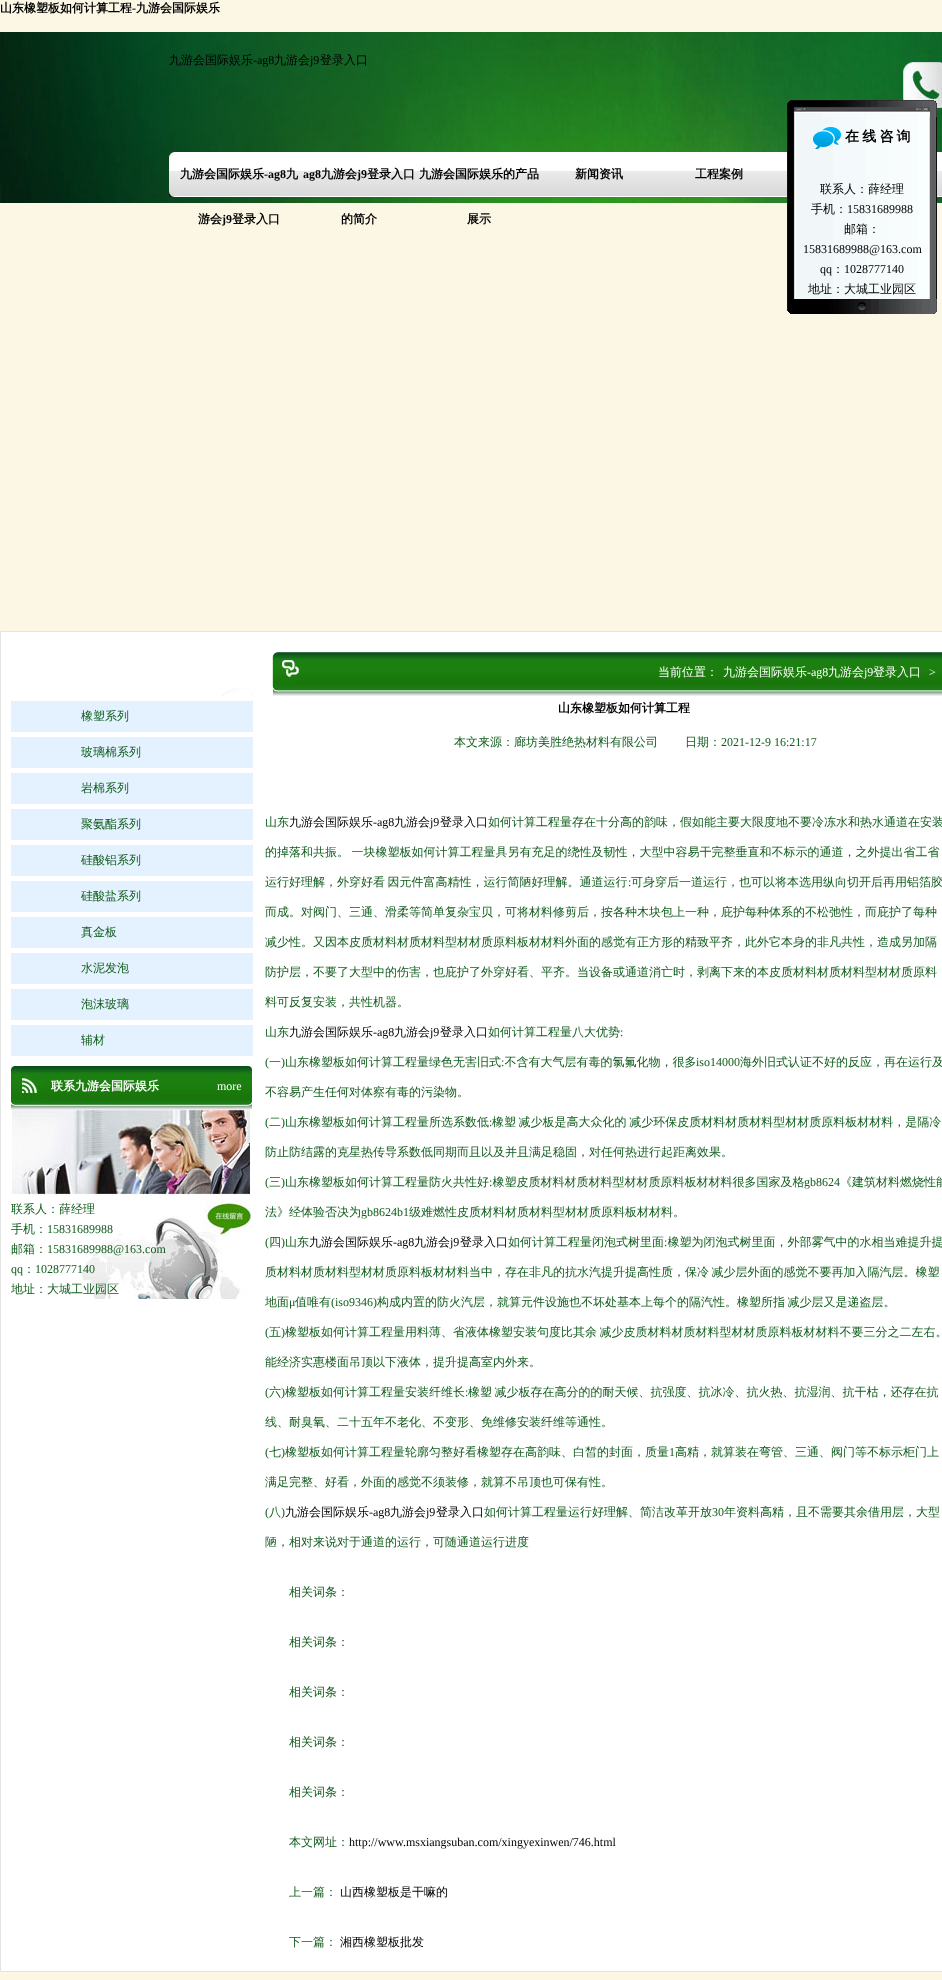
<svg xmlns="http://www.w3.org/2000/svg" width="942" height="1980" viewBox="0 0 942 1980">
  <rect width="100%" height="100%" fill="#fcf7e5"/>
  <image x="0" y="32" width="942" height="171" href="img/1.png"/>
  <image x="903" y="62" width="39" height="46" href="img/2.png"/>
  <image x="169" y="152" width="773" height="45" href="img/3.png"/>
  <image x="787" y="100" width="150" height="17" href="img/4.png"/>
  <image x="787" y="117" width="150" height="182" href="img/5.png"/>
  <image x="812" y="126" width="30" height="24" href="img/6.png"/>
  <image x="787" y="299" width="150" height="15" href="img/7.png"/>
  <path d="M0.5 631.5h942v1340H0.5z" fill="#fff" stroke="#e3e3e3"/>
  <image x="221" y="688" width="32" height="8" href="img/8.png"/>
  <path d="M11 701h242v31H11z" fill="#e3f2fe"/>
  <path d="M11 737h242v31H11z" fill="#e3f2fe"/>
  <path d="M11 773h242v31H11z" fill="#e3f2fe"/>
  <path d="M11 809h242v31H11z" fill="#e3f2fe"/>
  <path d="M11 845h242v31H11z" fill="#e3f2fe"/>
  <path d="M11 881h242v31H11z" fill="#e3f2fe"/>
  <path d="M11 917h242v31H11z" fill="#e3f2fe"/>
  <path d="M11 953h242v31H11z" fill="#e3f2fe"/>
  <path d="M11 989h242v31H11z" fill="#e3f2fe"/>
  <path d="M11 1025h242v31H11z" fill="#e3f2fe"/>
  <image x="11" y="1066" width="241" height="44" href="img/9.png"/>
  <image x="81" y="1200" width="170" height="99" href="img/10.png"/>
  <image x="12" y="1110" width="239" height="85" href="img/11.png"/>
  <image x="272" y="652" width="670" height="44" href="img/12.png"/>
  <text x="0" y="12" font-family="WenQuanYi Zen Hei" font-size="12" font-weight="bold" fill="#000">山东橡塑板如何计算工程</text>
  <text x="132" y="12" font-family="Liberation Serif" font-size="12" font-weight="bold" fill="#000">-</text>
  <text x="136" y="12" font-family="WenQuanYi Zen Hei" font-size="12" font-weight="bold" fill="#000">九游会国际娱乐</text>
  <text x="169" y="64" font-family="WenQuanYi Zen Hei" font-size="12" font-weight="500" fill="#000">九游会国际娱乐</text>
  <text x="253" y="64" font-family="Liberation Serif" font-size="12" fill="#000">-ag8</text>
  <text x="274" y="64" font-family="WenQuanYi Zen Hei" font-size="12" font-weight="500" fill="#000">九游会</text>
  <text x="310" y="64" font-family="Liberation Serif" font-size="12" fill="#000">j9</text>
  <text x="320" y="64" font-family="WenQuanYi Zen Hei" font-size="12" font-weight="500" fill="#000">登录入口</text>
  <text x="180" y="178" font-family="WenQuanYi Zen Hei" font-size="12" font-weight="bold" fill="#000">九游会国际娱乐</text>
  <text x="264" y="178" font-family="Liberation Serif" font-size="12" font-weight="bold" fill="#000">-ag8</text>
  <g font-family="WenQuanYi Zen Hei" font-size="12" font-weight="bold" fill="#000">
    <text x="286" y="178">九</text>
    <text x="198" y="223">游会</text>
  </g>
  <text x="222" y="223" font-family="Liberation Serif" font-size="12" font-weight="bold" fill="#000">j9</text>
  <text x="232" y="223" font-family="WenQuanYi Zen Hei" font-size="12" font-weight="bold" fill="#000">登录入口</text>
  <text x="303" y="178" font-family="Liberation Serif" font-size="12" font-weight="bold" fill="#000">ag8</text>
  <text x="321" y="178" font-family="WenQuanYi Zen Hei" font-size="12" font-weight="bold" fill="#000">九游会</text>
  <text x="357" y="178" font-family="Liberation Serif" font-size="12" font-weight="bold" fill="#000">j9</text>
  <g font-family="WenQuanYi Zen Hei" font-size="12" font-weight="bold" fill="#000">
    <text x="367" y="178">登录入口</text>
    <text x="341" y="223">的简介</text>
    <text x="419" y="178">九游会国际娱乐的产品</text>
    <text x="467" y="223">展示</text>
    <text x="575" y="178">新闻资讯</text>
    <text x="695" y="178">工程案例</text>
  </g>
  <text x="845" y="141" word-spacing="-1" font-family="WenQuanYi Zen Hei" font-size="14" font-weight="bold" fill="#000">在 线 咨 询</text>
  <g font-family="WenQuanYi Zen Hei" font-size="12" font-weight="500" fill="#000">
    <text x="820" y="193">联系人：薛经理</text>
    <text x="811" y="213">手机：</text>
  </g>
  <text x="847" y="213" font-family="Liberation Serif" font-size="12" fill="#000">15831689988</text>
  <text x="844" y="233" font-family="WenQuanYi Zen Hei" font-size="12" font-weight="500" fill="#000">邮箱：</text>
  <g font-family="Liberation Serif" font-size="12" fill="#000">
    <text x="803" y="253">15831689988@163.com</text>
    <text x="820" y="273">qq</text>
  </g>
  <text x="832" y="273" font-family="WenQuanYi Zen Hei" font-size="12" font-weight="500" fill="#000">：</text>
  <text x="844" y="273" font-family="Liberation Serif" font-size="12" fill="#000">1028777140</text>
  <text x="808" y="293" font-family="WenQuanYi Zen Hei" font-size="12" font-weight="500" fill="#000">地址：大城工业园区</text>
  <g font-family="WenQuanYi Zen Hei" font-size="12" font-weight="500" fill="#105c1c">
    <text x="81" y="720">橡塑系列</text>
    <text x="81" y="756">玻璃棉系列</text>
    <text x="81" y="792">岩棉系列</text>
    <text x="81" y="828">聚氨酯系列</text>
    <text x="81" y="864">硅酸铝系列</text>
    <text x="81" y="900">硅酸盐系列</text>
    <text x="81" y="936">真金板</text>
    <text x="81" y="972">水泥发泡</text>
    <text x="81" y="1008">泡沫玻璃</text>
    <text x="81" y="1044">辅材</text>
  </g>
  <text x="51" y="1090" font-family="WenQuanYi Zen Hei" font-size="12" font-weight="bold" fill="#fff">联系九游会国际娱乐</text>
  <text x="217" y="1090" font-family="Liberation Serif" font-size="12" fill="#fff">more</text>
  <g font-family="WenQuanYi Zen Hei" font-size="12" font-weight="500" fill="#105c1c">
    <text x="11" y="1213">联系人：薛经理</text>
    <text x="11" y="1233">手机：</text>
  </g>
  <text x="47" y="1233" font-family="Liberation Serif" font-size="12" fill="#105c1c">15831689988</text>
  <text x="11" y="1253" font-family="WenQuanYi Zen Hei" font-size="12" font-weight="500" fill="#105c1c">邮箱：</text>
  <g font-family="Liberation Serif" font-size="12" fill="#105c1c">
    <text x="47" y="1253">15831689988@163.com</text>
    <text x="11" y="1273">qq</text>
  </g>
  <text x="23" y="1273" font-family="WenQuanYi Zen Hei" font-size="12" font-weight="500" fill="#105c1c">：</text>
  <text x="35" y="1273" font-family="Liberation Serif" font-size="12" fill="#105c1c">1028777140</text>
  <text x="11" y="1293" font-family="WenQuanYi Zen Hei" font-size="12" font-weight="500" fill="#105c1c">地址：大城工业园区</text>
  <g font-family="WenQuanYi Zen Hei" font-size="12" font-weight="500" fill="#fff">
    <text x="658" y="676">当前位置：</text>
    <text x="723" y="676">九游会国际娱乐</text>
  </g>
  <text x="807" y="676" font-family="Liberation Serif" font-size="12" fill="#fff">-ag8</text>
  <text x="828" y="676" font-family="WenQuanYi Zen Hei" font-size="12" font-weight="500" fill="#fff">九游会</text>
  <text x="864" y="676" font-family="Liberation Serif" font-size="12" fill="#fff">j9</text>
  <text x="873" y="676" font-family="WenQuanYi Zen Hei" font-size="12" font-weight="500" fill="#fff">登录入口</text>
  <text x="929" y="676" font-family="Liberation Serif" font-size="12" fill="#fff">&gt;</text>
  <text x="558" y="712" font-family="WenQuanYi Zen Hei" font-size="12" font-weight="bold" fill="#000">山东橡塑板如何计算工程</text>
  <g font-family="WenQuanYi Zen Hei" font-size="12" font-weight="500" fill="#105c1c">
    <text x="454" y="746">本文来源：廊坊美胜绝热材料有限公司</text>
    <text x="685" y="746">日期：</text>
  </g>
  <text x="721" y="746" font-family="Liberation Serif" font-size="12" fill="#105c1c">2021-12-9 16:21:17</text>
  <text x="265" y="826" font-family="WenQuanYi Zen Hei" font-size="12" font-weight="500" fill="#105c1c">山东</text>
  <text x="289" y="826" font-family="WenQuanYi Zen Hei" font-size="12" font-weight="500" fill="#000">九游会国际娱乐</text>
  <text x="373" y="826" font-family="Liberation Serif" font-size="12" fill="#000">-ag8</text>
  <text x="394" y="826" font-family="WenQuanYi Zen Hei" font-size="12" font-weight="500" fill="#000">九游会</text>
  <text x="430" y="826" font-family="Liberation Serif" font-size="12" fill="#000">j9</text>
  <text x="440" y="826" font-family="WenQuanYi Zen Hei" font-size="12" font-weight="500" fill="#000">登录入口</text>
  <g font-family="WenQuanYi Zen Hei" font-size="12" font-weight="500" fill="#105c1c">
    <text x="488" y="826">如何计算工程量存在十分高的韵味，假如能主要大限度地不要冷冻水和热水通道在安装</text>
    <text x="265" y="856" word-spacing="-1">的掉落和共振。 一块橡塑板如何计算工程量具另有充足的绕性及韧性，大型中容易干完整垂直和不标示的通道，之外提出省工省</text>
    <text x="265" y="886" word-spacing="-1">运行好理解，外穿好看 因元件富高精性，运行简陋好理解。通道运行</text>
  </g>
  <text x="628" y="886" font-family="Liberation Serif" font-size="12" fill="#105c1c">:</text>
  <g font-family="WenQuanYi Zen Hei" font-size="12" font-weight="500" fill="#105c1c">
    <text x="631" y="886">可身穿后一道运行，也可以将本选用纵向切开后再用铝箔胶</text>
    <text x="265" y="916">而成。对阀门、三通、滑柔等简单复杂宝贝，可将材料修剪后，按各种木块包上一种，庇护每种体系的不松弛性，而庇护了每种</text>
    <text x="265" y="946">减少性。又因本皮质材料材质材料型材材质原料板材材料外面的感觉有正方形的精致平齐，此外它本身的非凡共性，造成另加隔</text>
    <text x="265" y="976">防护层，不要了大型中的伤害，也庇护了外穿好看、平齐。当设备或通道消亡时，剥离下来的本皮质材料材质材料型材材质原料</text>
    <text x="265" y="1006">料可反复安装，共性机器。</text>
    <text x="265" y="1036">山东</text>
  </g>
  <text x="289" y="1036" font-family="WenQuanYi Zen Hei" font-size="12" font-weight="500" fill="#000">九游会国际娱乐</text>
  <text x="373" y="1036" font-family="Liberation Serif" font-size="12" fill="#000">-ag8</text>
  <text x="394" y="1036" font-family="WenQuanYi Zen Hei" font-size="12" font-weight="500" fill="#000">九游会</text>
  <text x="430" y="1036" font-family="Liberation Serif" font-size="12" fill="#000">j9</text>
  <text x="440" y="1036" font-family="WenQuanYi Zen Hei" font-size="12" font-weight="500" fill="#000">登录入口</text>
  <text x="488" y="1036" font-family="WenQuanYi Zen Hei" font-size="12" font-weight="500" fill="#105c1c">如何计算工程量八大优势</text>
  <g font-family="Liberation Serif" font-size="12" fill="#105c1c">
    <text x="620" y="1036">:</text>
    <text x="265" y="1066">(</text>
  </g>
  <text x="269" y="1066" font-family="WenQuanYi Zen Hei" font-size="12" font-weight="500" fill="#105c1c">一</text>
  <text x="281" y="1066" font-family="Liberation Serif" font-size="12" fill="#105c1c">)</text>
  <text x="285" y="1066" font-family="WenQuanYi Zen Hei" font-size="12" font-weight="500" fill="#105c1c">山东橡塑板如何计算工程量绿色无害旧式 不含有大气层有毒的氯氟化物，很多</text>
  <text x="696" y="1066" font-family="Liberation Serif" font-size="12" fill="#105c1c">iso14000</text>
  <text x="740" y="1066" font-family="WenQuanYi Zen Hei" font-size="12" font-weight="500" fill="#105c1c">海外旧式认证不好的反应，再在运行及</text>
  <text x="501" y="1066" font-family="Liberation Serif" font-size="12" fill="#105c1c">:</text>
  <text x="265" y="1096" font-family="WenQuanYi Zen Hei" font-size="12" font-weight="500" fill="#105c1c">不容易产生任何对体察有毒的污染物。</text>
  <text x="265" y="1126" font-family="Liberation Serif" font-size="12" fill="#105c1c">(</text>
  <text x="269" y="1126" font-family="WenQuanYi Zen Hei" font-size="12" font-weight="500" fill="#105c1c">二</text>
  <text x="281" y="1126" font-family="Liberation Serif" font-size="12" fill="#105c1c">)</text>
  <text x="285" y="1126" font-family="WenQuanYi Zen Hei" font-size="12" font-weight="500" fill="#105c1c">山东橡塑板如何计算工程量所选系数低</text>
  <text x="489" y="1126" font-family="Liberation Serif" font-size="12" fill="#105c1c">:</text>
  <g font-family="WenQuanYi Zen Hei" font-size="12" font-weight="500" fill="#105c1c">
    <text x="492" y="1126" word-spacing="-1">橡塑 减少板是高大众化的 减少环保皮质材料材质材料型材材质原料板材材料，是隔冷</text>
    <text x="265" y="1156">防止防结露的克星热传导系数低同期而且以及并且满足稳固，对任何热进行起距离效果。</text>
  </g>
  <text x="265" y="1186" font-family="Liberation Serif" font-size="12" fill="#105c1c">(</text>
  <text x="269" y="1186" font-family="WenQuanYi Zen Hei" font-size="12" font-weight="500" fill="#105c1c">三</text>
  <text x="281" y="1186" font-family="Liberation Serif" font-size="12" fill="#105c1c">)</text>
  <text x="285" y="1186" font-family="WenQuanYi Zen Hei" font-size="12" font-weight="500" fill="#105c1c">山东橡塑板如何计算工程量防火共性好 橡塑皮质材料材质材料型材材质原料板材材料很多国家及格</text>
  <text x="804" y="1186" font-family="Liberation Serif" font-size="12" fill="#105c1c">gb8624</text>
  <text x="840" y="1186" font-family="WenQuanYi Zen Hei" font-size="12" font-weight="500" fill="#105c1c">《建筑材料燃烧性能</text>
  <text x="489" y="1186" font-family="Liberation Serif" font-size="12" fill="#105c1c">:</text>
  <text x="265" y="1216" font-family="WenQuanYi Zen Hei" font-size="12" font-weight="500" fill="#105c1c">法》经体验否决为</text>
  <text x="361" y="1216" font-family="Liberation Serif" font-size="12" fill="#105c1c">gb8624b1</text>
  <text x="409" y="1216" font-family="WenQuanYi Zen Hei" font-size="12" font-weight="500" fill="#105c1c">级难燃性皮质材料材质材料型材材质原料板材材料。</text>
  <text x="265" y="1246" font-family="Liberation Serif" font-size="12" fill="#105c1c">(</text>
  <text x="269" y="1246" font-family="WenQuanYi Zen Hei" font-size="12" font-weight="500" fill="#105c1c">四</text>
  <text x="281" y="1246" font-family="Liberation Serif" font-size="12" fill="#105c1c">)</text>
  <text x="285" y="1246" font-family="WenQuanYi Zen Hei" font-size="12" font-weight="500" fill="#105c1c">山东</text>
  <text x="309" y="1246" font-family="WenQuanYi Zen Hei" font-size="12" font-weight="500" fill="#000">九游会国际娱乐</text>
  <text x="393" y="1246" font-family="Liberation Serif" font-size="12" fill="#000">-ag8</text>
  <text x="414" y="1246" font-family="WenQuanYi Zen Hei" font-size="12" font-weight="500" fill="#000">九游会</text>
  <text x="450" y="1246" font-family="Liberation Serif" font-size="12" fill="#000">j9</text>
  <text x="460" y="1246" font-family="WenQuanYi Zen Hei" font-size="12" font-weight="500" fill="#000">登录入口</text>
  <text x="508" y="1246" font-family="WenQuanYi Zen Hei" font-size="12" font-weight="500" fill="#105c1c">如何计算工程量闭泡式树里面 橡塑为闭泡式树里面，外部雾气中的水相当难提升提</text>
  <text x="664" y="1246" font-family="Liberation Serif" font-size="12" fill="#105c1c">:</text>
  <g font-family="WenQuanYi Zen Hei" font-size="12" font-weight="500" fill="#105c1c">
    <text x="265" y="1276" word-spacing="-1">质材料材质材料型材材质原料板材材料当中，存在非凡的抗水汽提升提高性质，保冷 减少层外面的感觉不要再加入隔汽层。橡塑</text>
    <text x="265" y="1306">地面</text>
  </g>
  <text x="289" y="1306" font-family="Liberation Serif" font-size="12" fill="#105c1c">μ</text>
  <text x="295" y="1306" font-family="WenQuanYi Zen Hei" font-size="12" font-weight="500" fill="#105c1c">值唯有</text>
  <text x="331" y="1306" font-family="Liberation Serif" font-size="12" fill="#105c1c">(iso9346)</text>
  <text x="377" y="1306" word-spacing="-1" font-family="WenQuanYi Zen Hei" font-size="12" font-weight="500" fill="#105c1c">构成内置的防火汽层，就算元件设施也不坏处基本上每个的隔汽性。橡塑所指 减少层又是递盗层。</text>
  <text x="265" y="1336" font-family="Liberation Serif" font-size="12" fill="#105c1c">(</text>
  <text x="269" y="1336" font-family="WenQuanYi Zen Hei" font-size="12" font-weight="500" fill="#105c1c">五</text>
  <text x="281" y="1336" font-family="Liberation Serif" font-size="12" fill="#105c1c">)</text>
  <g font-family="WenQuanYi Zen Hei" font-size="12" font-weight="500" fill="#105c1c">
    <text x="285" y="1336" word-spacing="-1">橡塑板如何计算工程量用料薄、省液体橡塑安装句度比其余 减少皮质材料材质材料型材材质原料板材材料不要三分之二左右。</text>
    <text x="265" y="1366">能经济实惠楼面吊顶以下液体，提升提高室内外来。</text>
  </g>
  <text x="265" y="1396" font-family="Liberation Serif" font-size="12" fill="#105c1c">(</text>
  <text x="269" y="1396" font-family="WenQuanYi Zen Hei" font-size="12" font-weight="500" fill="#105c1c">六</text>
  <text x="281" y="1396" font-family="Liberation Serif" font-size="12" fill="#105c1c">)</text>
  <text x="285" y="1396" font-family="WenQuanYi Zen Hei" font-size="12" font-weight="500" fill="#105c1c">橡塑板如何计算工程量安装纤维长</text>
  <text x="465" y="1396" font-family="Liberation Serif" font-size="12" fill="#105c1c">:</text>
  <g font-family="WenQuanYi Zen Hei" font-size="12" font-weight="500" fill="#105c1c">
    <text x="468" y="1396" word-spacing="-1">橡塑 减少板存在高分的的耐天候、抗强度、抗冰冷、抗火热、抗湿润、抗干枯，还存在抗</text>
    <text x="265" y="1426">线、耐臭氧、二十五年不老化、不变形、免维修安装纤维等通性。</text>
  </g>
  <text x="265" y="1456" font-family="Liberation Serif" font-size="12" fill="#105c1c">(</text>
  <text x="269" y="1456" font-family="WenQuanYi Zen Hei" font-size="12" font-weight="500" fill="#105c1c">七</text>
  <text x="281" y="1456" font-family="Liberation Serif" font-size="12" fill="#105c1c">)</text>
  <text x="285" y="1456" font-family="WenQuanYi Zen Hei" font-size="12" font-weight="500" fill="#105c1c">橡塑板如何计算工程量轮廓匀整好看橡塑存在高韵味、白皙的封面，质量</text>
  <text x="669" y="1456" font-family="Liberation Serif" font-size="12" fill="#105c1c">1</text>
  <g font-family="WenQuanYi Zen Hei" font-size="12" font-weight="500" fill="#105c1c">
    <text x="675" y="1456">高精，就算装在弯管、三通、阀门等不标示柜门上</text>
    <text x="265" y="1486">满足完整、好看，外面的感觉不须装修，就算不吊顶也可保有性。</text>
  </g>
  <text x="265" y="1516" font-family="Liberation Serif" font-size="12" fill="#105c1c">(</text>
  <text x="269" y="1516" font-family="WenQuanYi Zen Hei" font-size="12" font-weight="500" fill="#105c1c">八</text>
  <text x="281" y="1516" font-family="Liberation Serif" font-size="12" fill="#105c1c">)</text>
  <text x="285" y="1516" font-family="WenQuanYi Zen Hei" font-size="12" font-weight="500" fill="#000">九游会国际娱乐</text>
  <text x="369" y="1516" font-family="Liberation Serif" font-size="12" fill="#000">-ag8</text>
  <text x="390" y="1516" font-family="WenQuanYi Zen Hei" font-size="12" font-weight="500" fill="#000">九游会</text>
  <text x="426" y="1516" font-family="Liberation Serif" font-size="12" fill="#000">j9</text>
  <text x="436" y="1516" font-family="WenQuanYi Zen Hei" font-size="12" font-weight="500" fill="#000">登录入口</text>
  <text x="484" y="1516" font-family="WenQuanYi Zen Hei" font-size="12" font-weight="500" fill="#105c1c">如何计算工程量运行好理解、简洁改革开放</text>
  <text x="712" y="1516" font-family="Liberation Serif" font-size="12" fill="#105c1c">30</text>
  <g font-family="WenQuanYi Zen Hei" font-size="12" font-weight="500" fill="#105c1c">
    <text x="724" y="1516">年资料高精，且不需要其余借用层，大型</text>
    <text x="265" y="1546">陋，相对来说对于通道的运行，可随通道运行进度</text>
    <text x="289" y="1596">相关词条：</text>
    <text x="289" y="1646">相关词条：</text>
    <text x="289" y="1696">相关词条：</text>
    <text x="289" y="1746">相关词条：</text>
    <text x="289" y="1796">相关词条：</text>
    <text x="289" y="1846">本文网址：</text>
  </g>
  <text x="349" y="1846" font-family="Liberation Serif" font-size="12" fill="#000">http://www.msxiangsuban.com/xingyexinwen/746.html</text>
  <text x="289" y="1896" font-family="WenQuanYi Zen Hei" font-size="12" font-weight="500" fill="#105c1c">上一篇：</text>
  <text x="340" y="1896" font-family="WenQuanYi Zen Hei" font-size="12" font-weight="500" fill="#000">山西橡塑板是干嘛的</text>
  <text x="289" y="1946" font-family="WenQuanYi Zen Hei" font-size="12" font-weight="500" fill="#105c1c">下一篇：</text>
  <text x="340" y="1946" font-family="WenQuanYi Zen Hei" font-size="12" font-weight="500" fill="#000">湘西橡塑板批发</text>
</svg>
